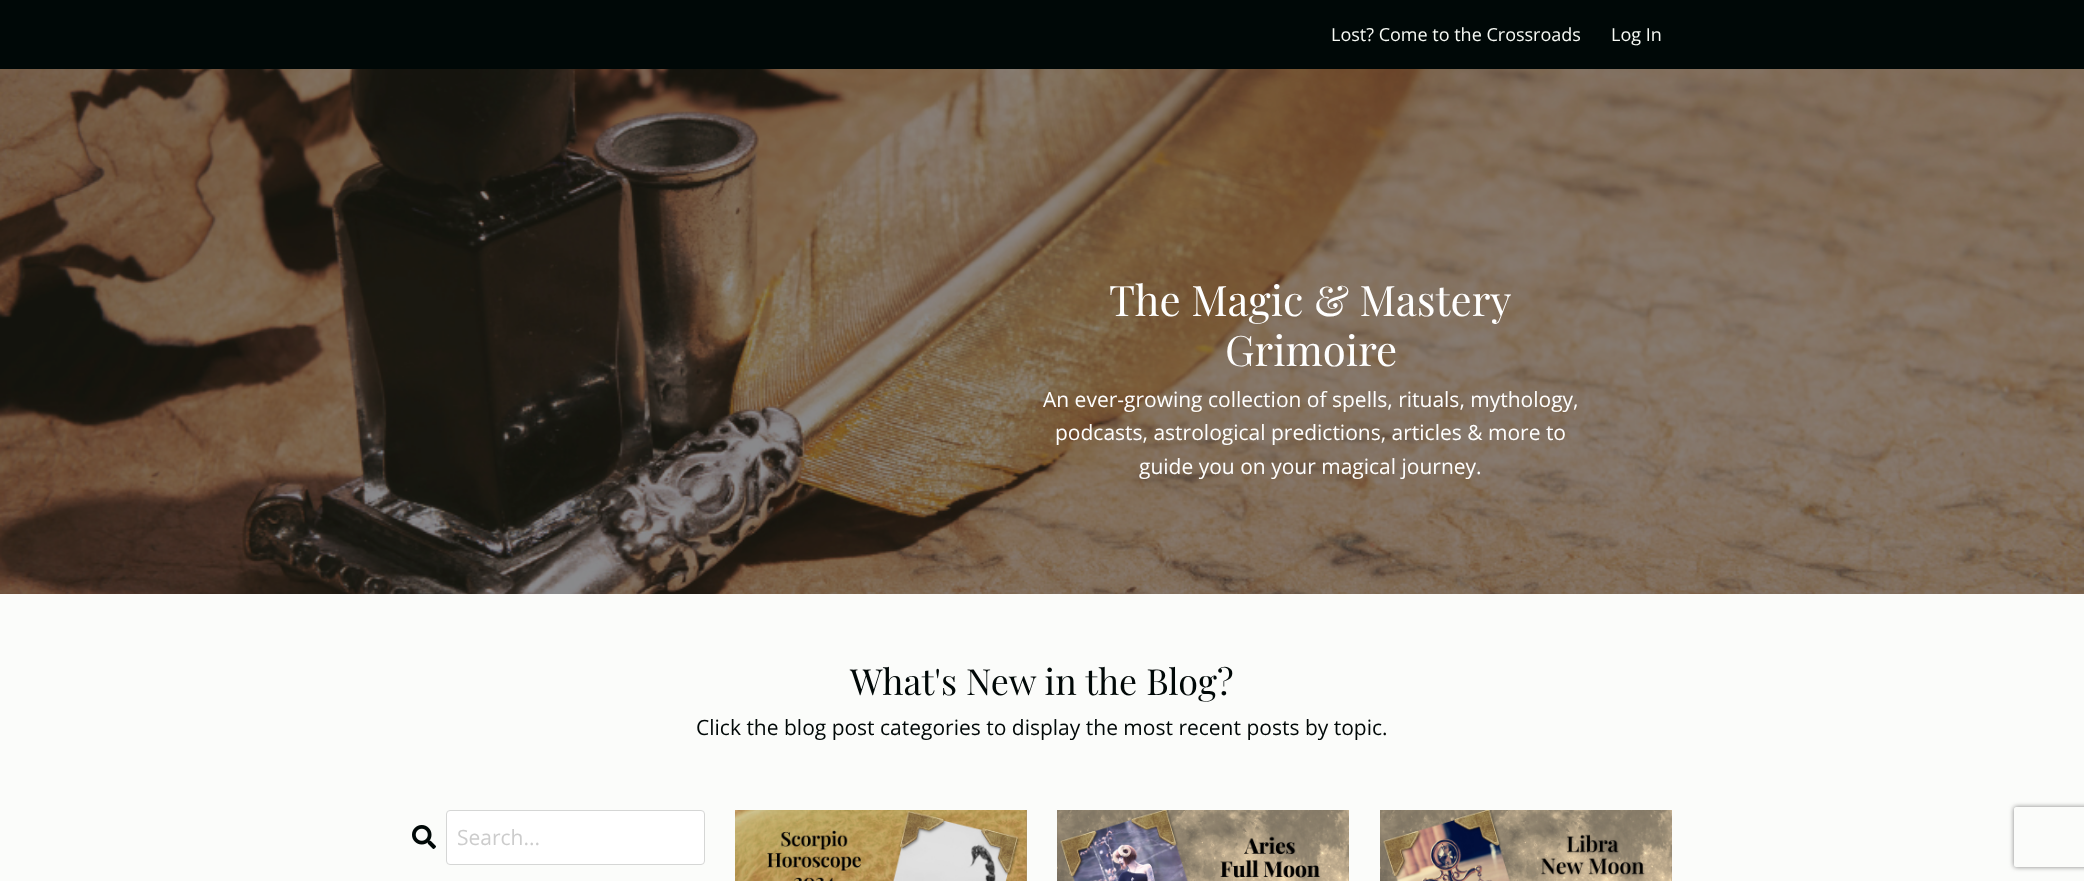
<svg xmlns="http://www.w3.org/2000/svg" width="2084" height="881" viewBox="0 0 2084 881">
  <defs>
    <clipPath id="clip1"><path d="M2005 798H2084V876H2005ZM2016 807H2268C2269 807 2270 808 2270 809V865C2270 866 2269 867 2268 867H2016C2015 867 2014 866 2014 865V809C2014 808 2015 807 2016 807Z" clip-rule="evenodd"/></clipPath>
  </defs>
  <rect width="100%" height="100%" fill="#fbfcfa"/>
  <path d="M0 0h2084v69H0z" fill="#000807"/>
  <image x="0" y="69" width="2084" height="525" href="img/1.png"/>
  <image x="412" y="825" width="24" height="24" href="img/2.png"/>
  <rect x="446.5" y="810.5" width="258" height="54" rx="3.5" fill="#fff" stroke="#d5d6d5"/>
  <image x="735" y="810" width="292" height="71" href="img/3.png"/>
  <image x="1057" y="810" width="292" height="71" href="img/4.png"/>
  <image x="1380" y="810" width="292" height="71" href="img/5.png"/>
  <g clip-path="url(#clip1)">
    <rect x="2014" y="807" width="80" height="60" rx="2" fill="#808080" filter="blur(2.5px)"/>
  </g>
  <g font-family="Open Sans" font-size="18" fill="#f7faf5">
    <text x="1331" y="41">Lost? Come to the Crossroads</text>
    <text x="1611" y="41">Log In</text>
  </g>
  <g font-family="Playfair Display" font-size="42" fill="#fff">
    <text x="1109" y="316">The Magic &amp; Mastery</text>
    <text x="1225" y="366">Grimoire</text>
  </g>
  <g font-family="Open Sans" font-size="21" fill="#fff">
    <text x="1043" y="407">An ever-growing collection of spells, rituals, mythology,</text>
    <text x="1055" y="440">podcasts, astrological predictions, articles &amp; more to</text>
    <text x="1139" y="474">guide you on your magical journey.</text>
  </g>
  <text x="850" y="695" font-family="Playfair Display" font-size="36" fill="#000807">What's New in the Blog?</text>
  <text x="696" y="735" font-family="Open Sans" font-size="21" fill="#000807">Click the blog post categories to display the most recent posts by topic.</text>
  <text x="457" y="845" font-family="Open Sans" font-size="21" fill="#ccc">Search...</text>
</svg>
